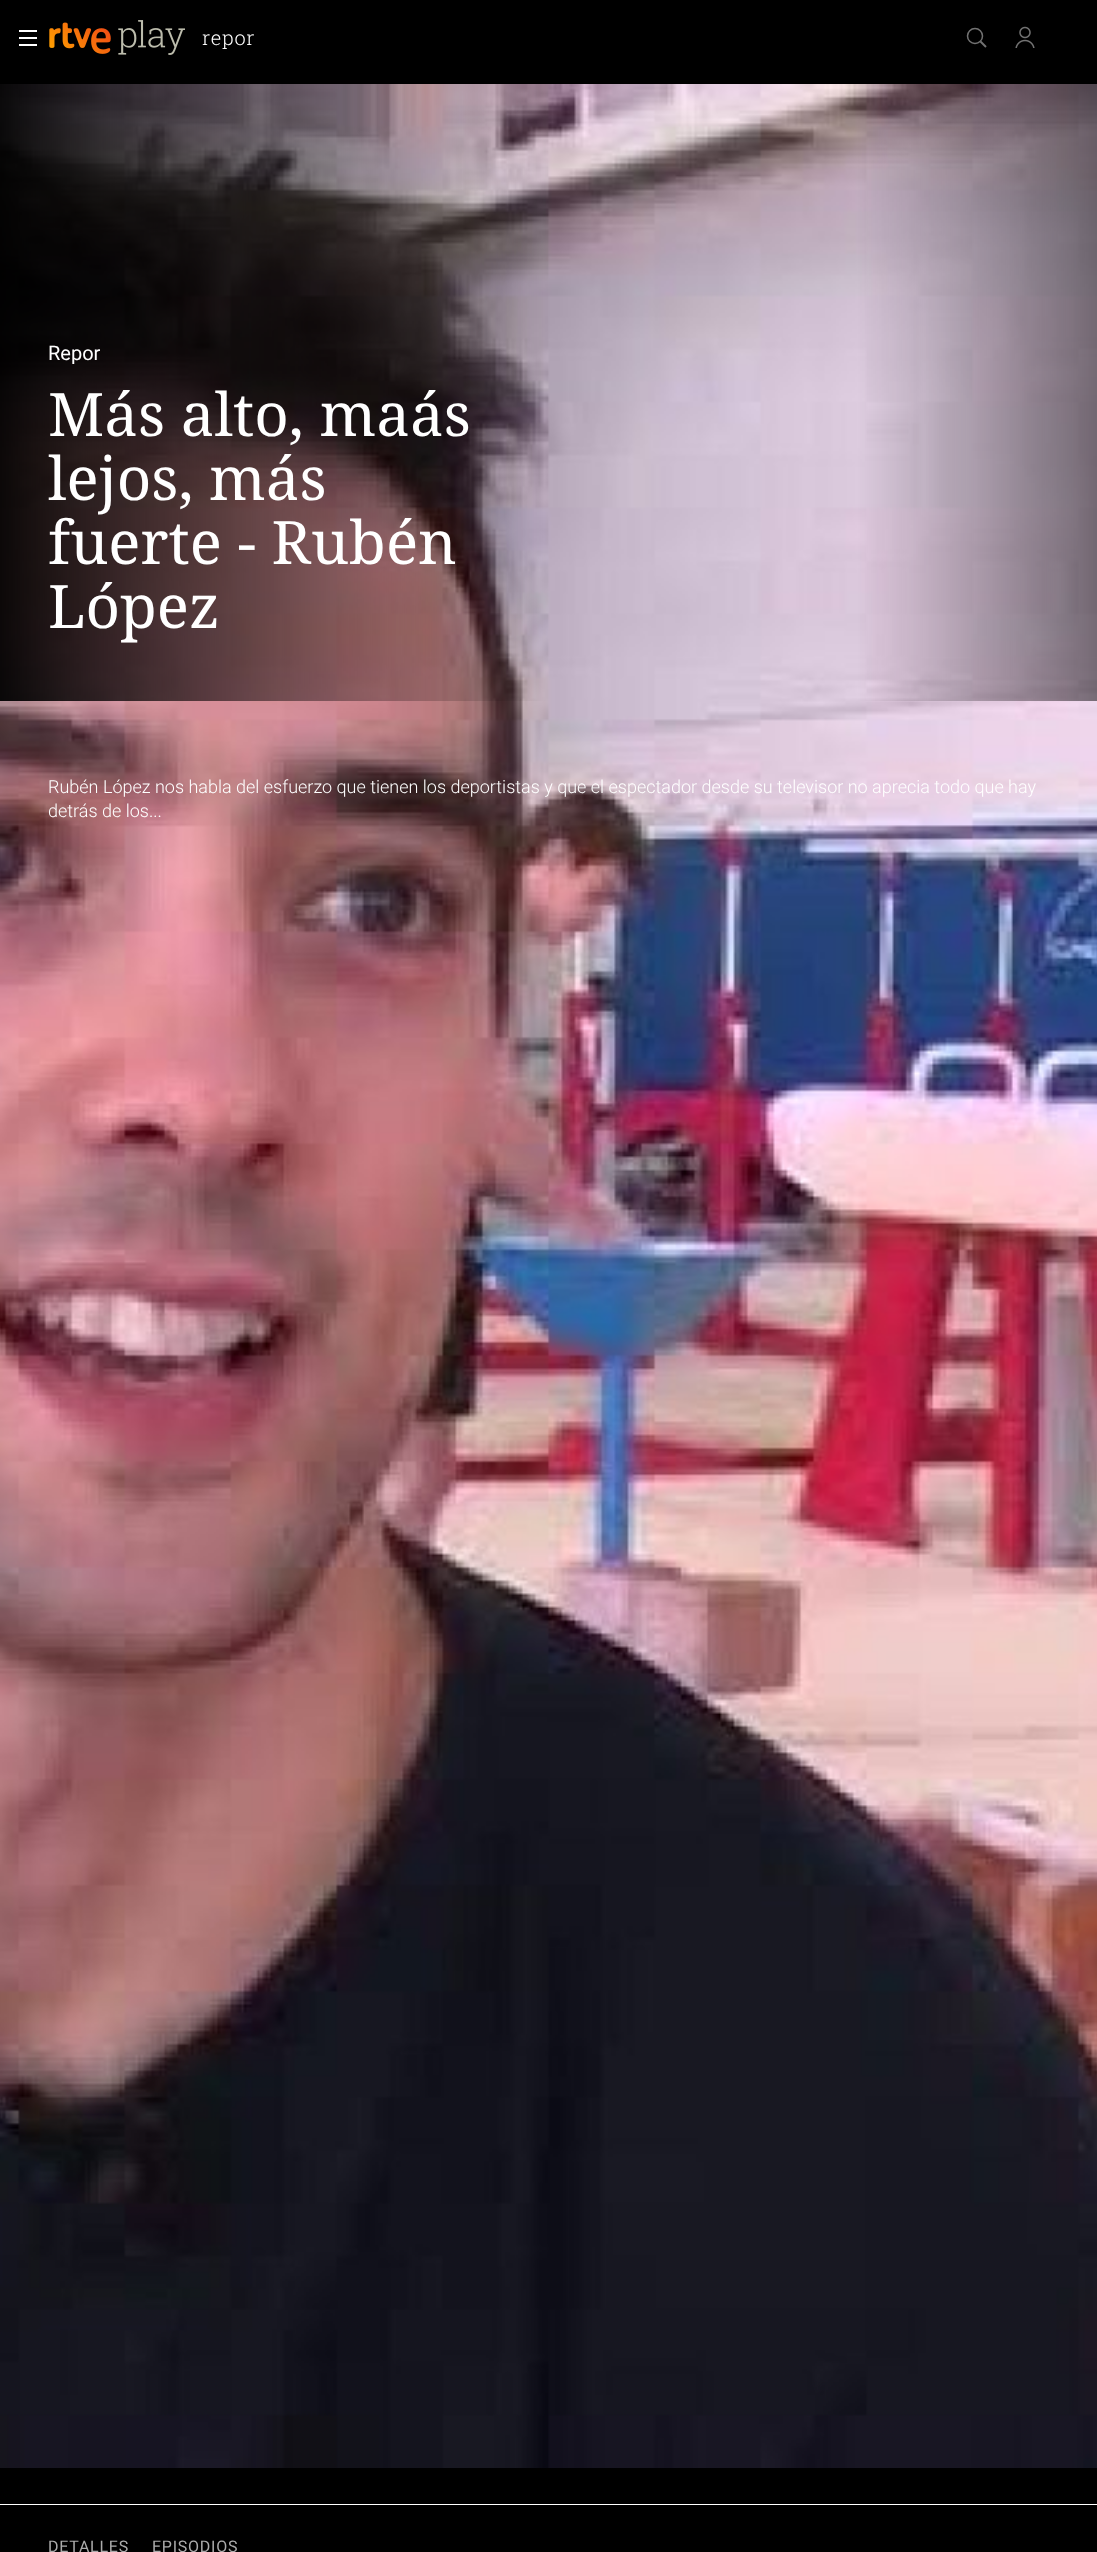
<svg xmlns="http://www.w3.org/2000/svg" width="1097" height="2552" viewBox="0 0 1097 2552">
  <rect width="100%" height="100%" fill="#000"/>
  <path d="M19 30h18v2H19z" fill="#fff"/>
  <path d="M19 37h18v2H19z" fill="#fff"/>
  <path d="M19 44h18v2H19z" fill="#fff"/>
  <image x="49" y="22" width="62" height="32" href="img/1.png"/>
  <image x="118" y="20" width="67" height="35" href="img/2.png"/>
  <circle cx="975" cy="36" r="7.5" fill="none" stroke="#727272" stroke-width="1.5"/>
  <path d="M980.5 41.5L986 47" fill="none" stroke="#727272" stroke-width="2"/>
  <image x="1015" y="26" width="20" height="22" href="img/3.png"/>
  <image x="0" y="84" width="1097" height="2384" href="img/4.png"/>
  <path d="M0 2504h1097v1H0z" fill="#fff"/>
  <text x="202" y="45" font-family="Roboto Slab" font-size="20" font-weight="300" letter-spacing="0.75" fill="#fff">repor</text>
  <text x="48" y="360" font-family="Roboto" font-size="20" fill="#fff">Repor</text>
  <g font-family="Noto Serif" font-size="60" fill="#fff">
    <text x="48" y="436">Más alto, maás</text>
    <text x="48" y="500">lejos, más</text>
    <text x="48" y="564">fuerte - Rubén</text>
    <text x="48" y="628">López</text>
  </g>
  <g font-family="Roboto" font-size="18" font-weight="300" fill="#fff">
    <text x="48" y="793">Rubén López nos habla del esfuerzo que tienen los deportistas y que el espectador desde su televisor no aprecia todo que hay</text>
    <text x="48" y="817">detrás de los...</text>
  </g>
  <g font-family="Roboto" font-size="16" letter-spacing="0.75" fill="#ababab">
    <text x="48" y="2552">DETALLES</text>
    <text x="152" y="2552">EPISODIOS</text>
  </g>
</svg>
